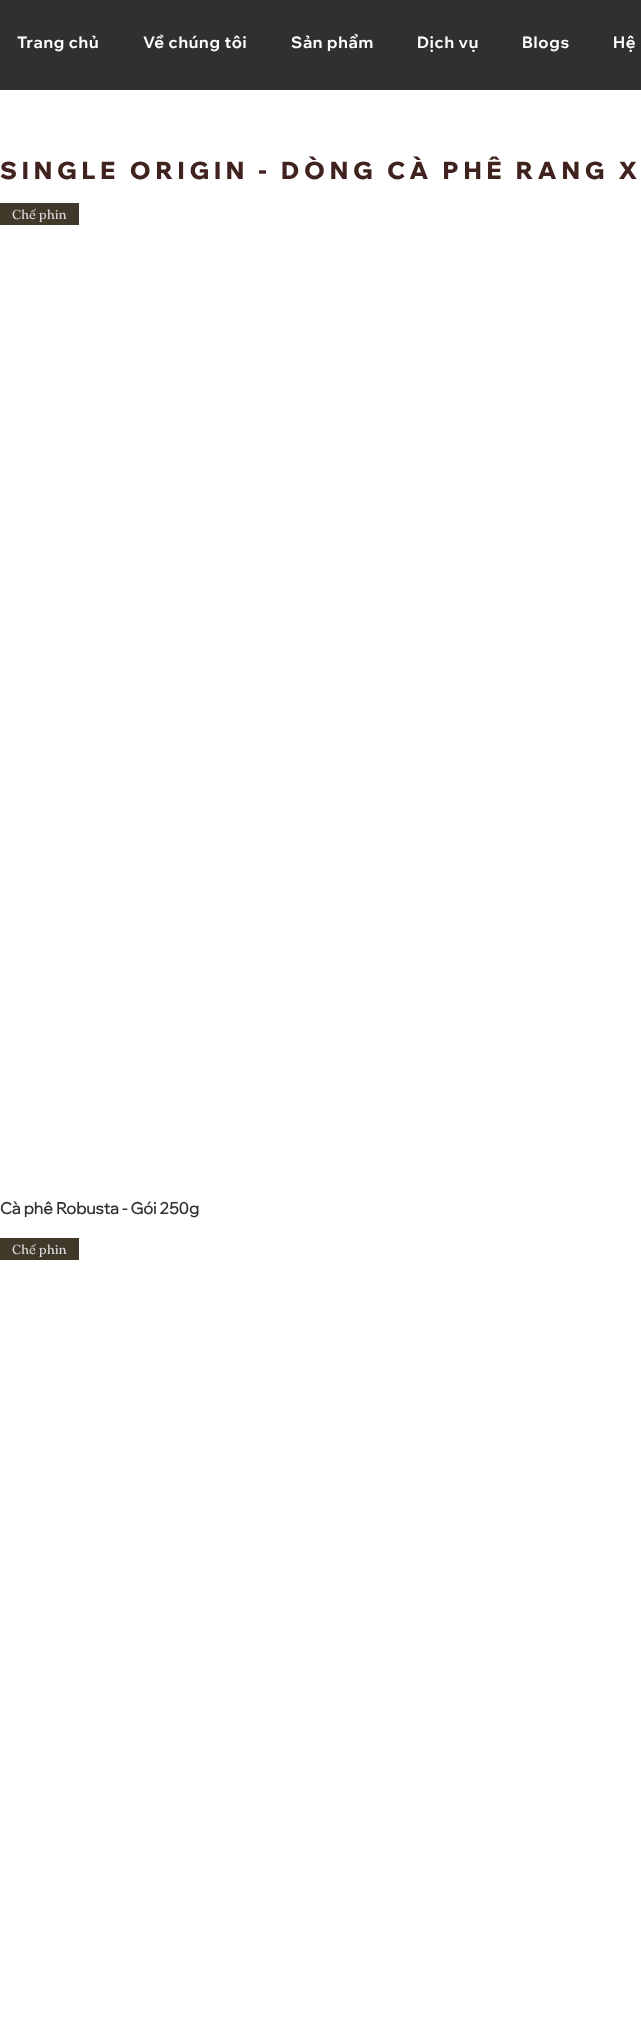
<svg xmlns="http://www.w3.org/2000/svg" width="641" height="2038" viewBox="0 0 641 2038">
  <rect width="100%" height="100%" fill="#fff"/>
  <path d="M0 0h641v90H0z" fill="#303030"/>
  <path d="M0 203h79v22H0z" fill="#40392a"/>
  <path d="M0 1238h79v22H0z" fill="#40392a"/>
  <g font-family="'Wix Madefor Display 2'" font-size="16" font-weight="bold" letter-spacing="0.75" fill="#fff">
    <text x="17" y="48">Trang chủ</text>
    <text x="143" y="48">Về chúng tôi</text>
    <text x="291" y="48">Sản phẩm</text>
    <text x="417" y="48">Dịch vụ</text>
    <text x="522" y="48">Blogs</text>
    <text x="613" y="48">Hệ</text>
  </g>
  <text x="0" y="179" font-family="Wix Madefor Display" font-size="24" font-weight="800" letter-spacing="4.8" fill="#40231f">SINGLE ORIGIN - DÒNG CÀ PHÊ RANG X</text>
  <text x="12" y="219" font-family="Fraunces" font-size="13" fill="#dadada">Chế phin</text>
  <text x="0" y="1214" font-family="Wix Madefor Display" font-size="16" font-weight="bold" fill="#303030">Cà phê Robusta - Gói 250g</text>
  <text x="12" y="1254" font-family="Fraunces" font-size="13" fill="#dadada">Chế phin</text>
</svg>
